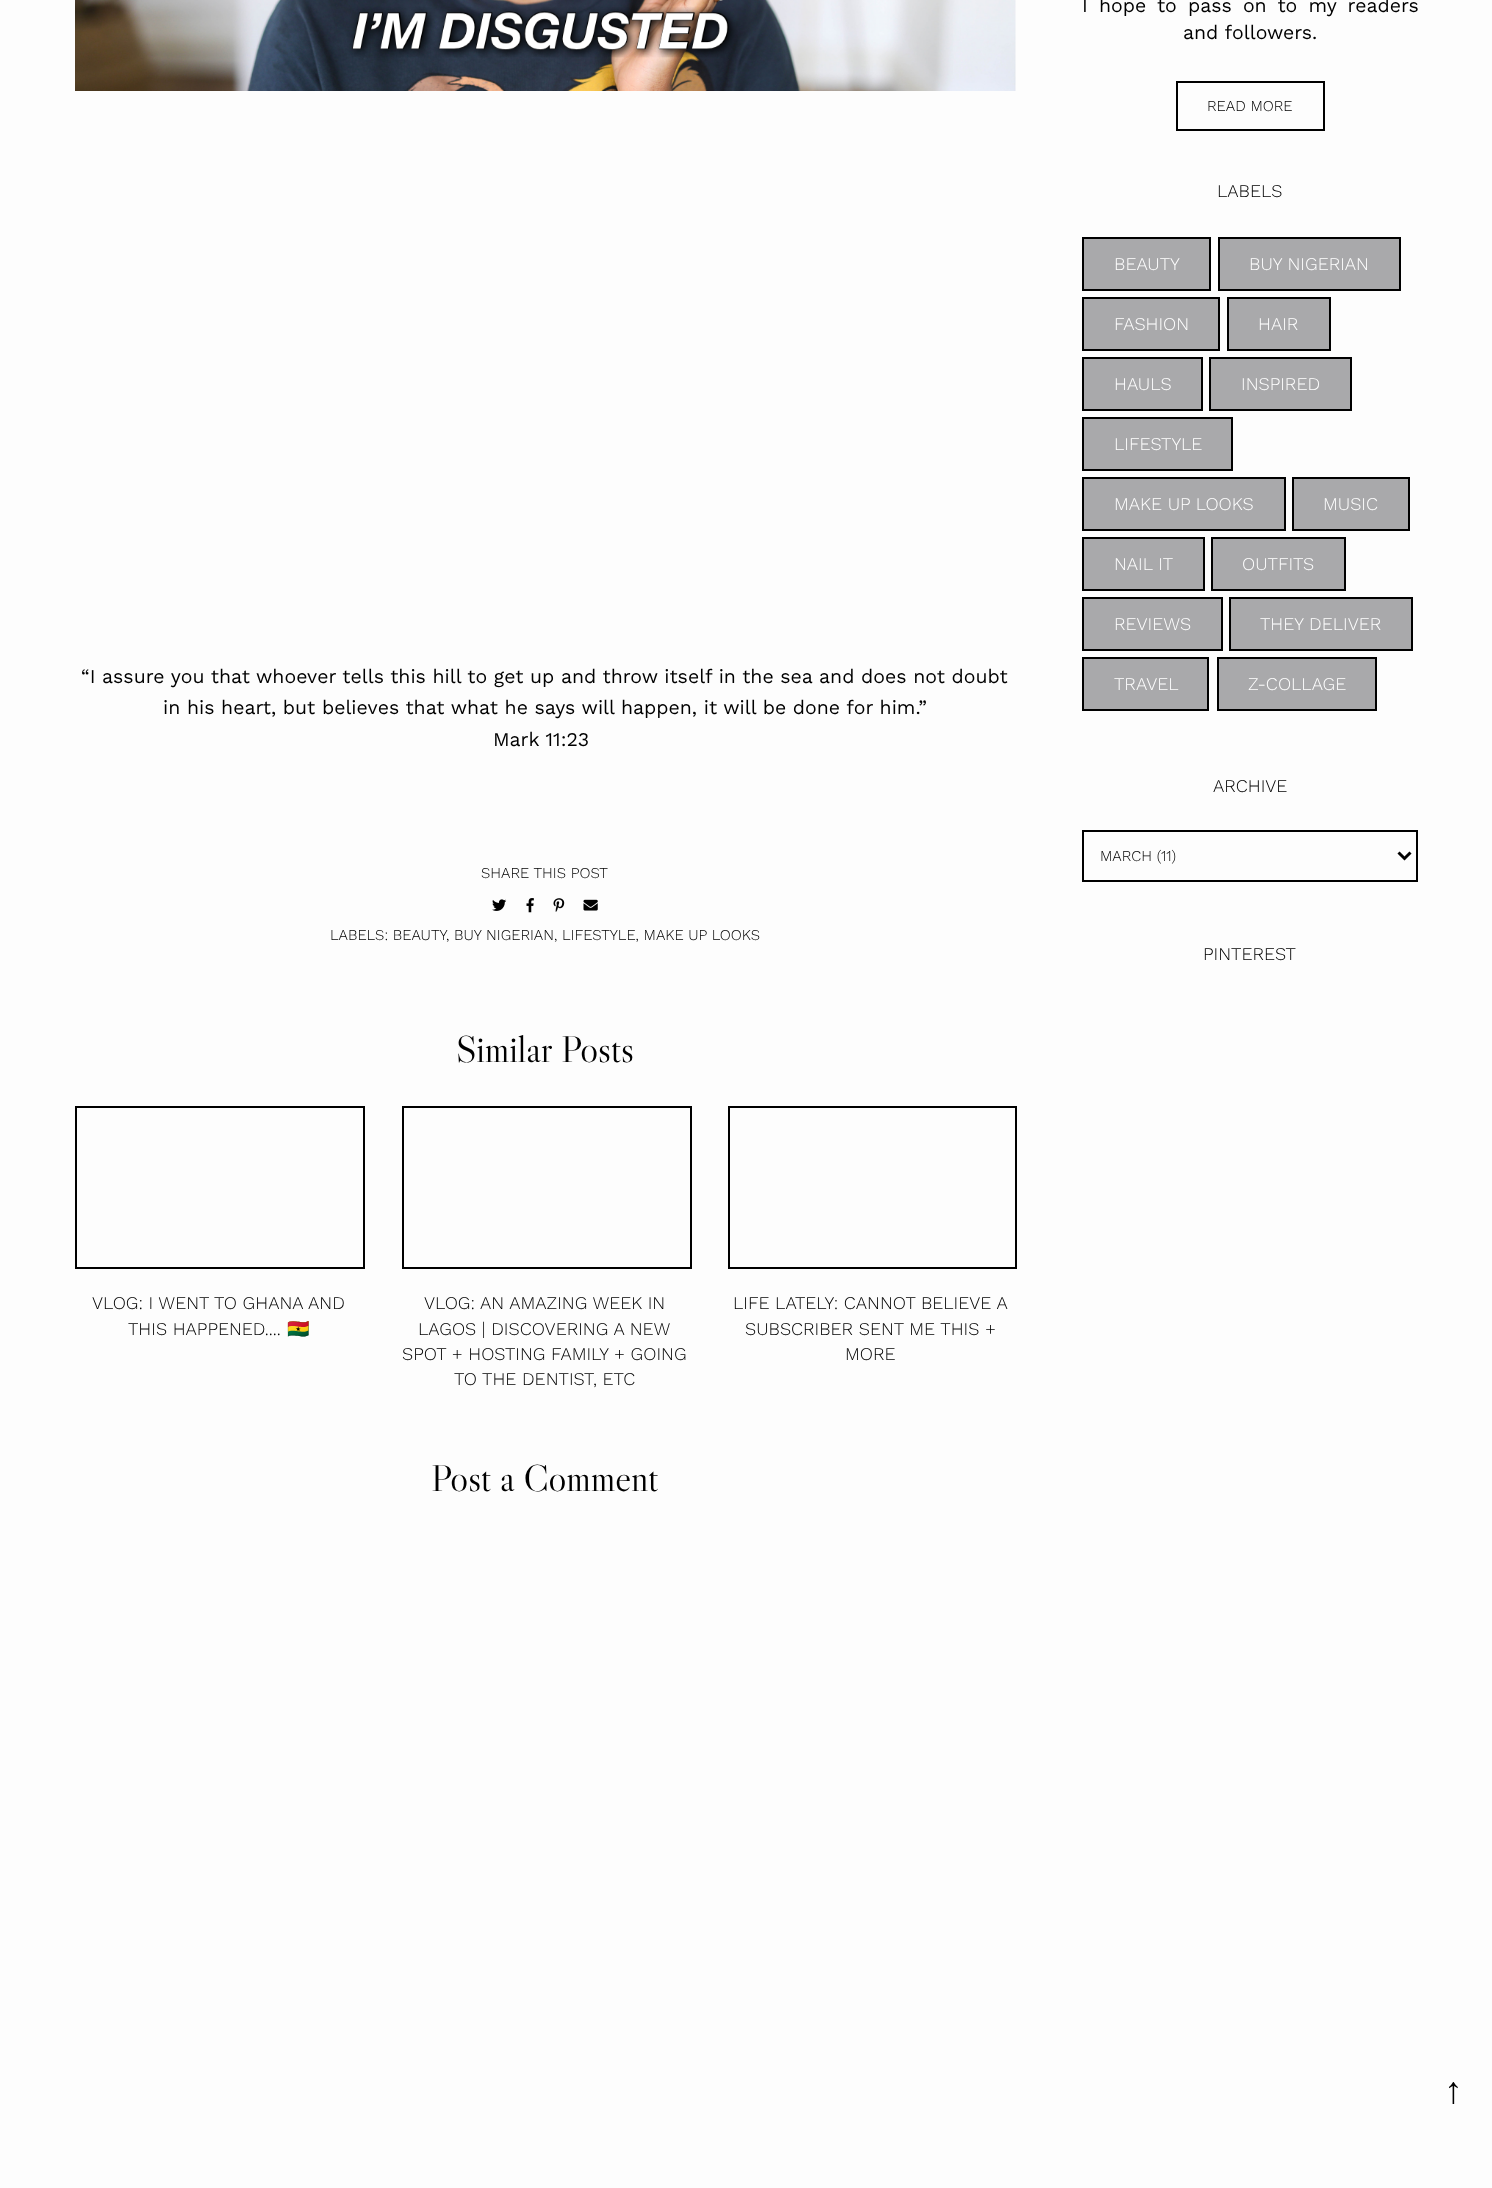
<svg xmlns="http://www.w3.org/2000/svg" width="1492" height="2188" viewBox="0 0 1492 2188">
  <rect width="100%" height="100%" fill="#fdfdfd"/>
  <path d="M1177 82h147v48H1177z" fill="none" stroke="#000" stroke-width="2"/>
  <path d="M1083 238h127v52H1083z" fill="#a9a9ab" stroke="#000" stroke-width="2"/>
  <path d="M1219 238h181v52H1219z" fill="#a9a9ab" stroke="#000" stroke-width="2"/>
  <path d="M1083 298h136v52H1083z" fill="#a9a9ab" stroke="#000" stroke-width="2"/>
  <path d="M1228 298h102v52H1228z" fill="#a9a9ab" stroke="#000" stroke-width="2"/>
  <path d="M1083 358h119v52H1083z" fill="#a9a9ab" stroke="#000" stroke-width="2"/>
  <path d="M1210 358h141v52H1210z" fill="#a9a9ab" stroke="#000" stroke-width="2"/>
  <path d="M1083 418h149v52H1083z" fill="#a9a9ab" stroke="#000" stroke-width="2"/>
  <path d="M1083 478h202v52H1083z" fill="#a9a9ab" stroke="#000" stroke-width="2"/>
  <path d="M1293 478h116v52H1293z" fill="#a9a9ab" stroke="#000" stroke-width="2"/>
  <path d="M1083 538h121v52H1083z" fill="#a9a9ab" stroke="#000" stroke-width="2"/>
  <path d="M1212 538h133v52H1212z" fill="#a9a9ab" stroke="#000" stroke-width="2"/>
  <path d="M1083 598h139v52H1083z" fill="#a9a9ab" stroke="#000" stroke-width="2"/>
  <path d="M1230 598h182v52H1230z" fill="#a9a9ab" stroke="#000" stroke-width="2"/>
  <path d="M1083 658h125v52H1083z" fill="#a9a9ab" stroke="#000" stroke-width="2"/>
  <path d="M1218 658h158v52H1218z" fill="#a9a9ab" stroke="#000" stroke-width="2"/>
  <path d="M1083 831h334v50H1083z" fill="none" stroke="#000" stroke-width="2"/>
  <path d="M1398.5 852.5L1404.5 858.5L1410.5 852.5" fill="none" stroke="#000" stroke-width="3"/>
  <image x="75" y="0" width="941" height="91" href="img/1.png"/>
  <image x="492" y="899" width="15" height="12" href="img/2.png"/>
  <image x="526" y="898" width="8" height="15" href="img/3.png"/>
  <image x="553" y="898" width="12" height="14" href="img/4.png"/>
  <image x="583" y="899" width="15" height="12" href="img/5.png"/>
  <path d="M76 1107h288v161H76z" fill="none" stroke="#000" stroke-width="2"/>
  <path d="M403 1107h288v161H403z" fill="none" stroke="#000" stroke-width="2"/>
  <path d="M729 1107h287v161H729z" fill="none" stroke="#000" stroke-width="2"/>
  <g font-family="Work Sans" font-size="19.5" fill="#000">
    <text x="1082" y="12" word-spacing="4.5">I hope to pass on to my readers</text>
    <text x="1183" y="39">and followers.</text>
  </g>
  <text x="1207" y="111" font-family="Work Sans" font-size="15" font-weight="300" fill="#000">READ MORE</text>
  <text x="1217" y="197" font-family="Work Sans" font-size="18" font-weight="300" fill="#000">LABELS</text>
  <g font-family="Work Sans" font-size="18" font-weight="300" fill="#fff">
    <text x="1114" y="270">BEAUTY</text>
    <text x="1249" y="270">BUY NIGERIAN</text>
    <text x="1114" y="330">FASHION</text>
    <text x="1258" y="330">HAIR</text>
    <text x="1114" y="390">HAULS</text>
    <text x="1241" y="390">INSPIRED</text>
    <text x="1114" y="450">LIFESTYLE</text>
    <text x="1114" y="510">MAKE UP LOOKS</text>
    <text x="1323" y="510">MUSIC</text>
    <text x="1114" y="570">NAIL IT</text>
    <text x="1242" y="570">OUTFITS</text>
    <text x="1114" y="630">REVIEWS</text>
    <text x="1260" y="630">THEY DELIVER</text>
    <text x="1114" y="690">TRAVEL</text>
    <text x="1248" y="690">Z-COLLAGE</text>
  </g>
  <text x="1213" y="792" font-family="Work Sans" font-size="18" font-weight="300" fill="#000">ARCHIVE</text>
  <text x="1100" y="861" font-family="Work Sans" font-size="15" font-weight="300" fill="#000">MARCH (11)</text>
  <text x="1203" y="960" font-family="Work Sans" font-size="18" font-weight="300" fill="#000">PINTEREST</text>
  <g font-family="Work Sans" font-size="19.5" fill="#000">
    <text x="81" y="683">“I assure you that whoever tells this hill to get up and throw itself in the sea and does not doubt</text>
    <text x="163" y="714">in his heart, but believes that what he says will happen, it will be done for him.”</text>
    <text x="493" y="746">Mark 11:23</text>
  </g>
  <g font-family="Work Sans" font-size="15" font-weight="300" fill="#000">
    <text x="481" y="878">SHARE THIS POST</text>
    <text x="330" y="940">LABELS: BEAUTY</text>
    <text x="446" y="940">, BUY NIGERIAN, LIFESTYLE, MAKE UP LOOKS</text>
  </g>
  <text x="456" y="1062" font-family="Libre Caslon Display" font-size="37.5" fill="#000">Similar Posts</text>
  <g font-family="Work Sans" font-size="18" font-weight="300" fill="#000">
    <text x="92" y="1309">VLOG: I WENT TO GHANA AND</text>
    <text x="128" y="1335">THIS HAPPENED....</text>
  </g>
  <text x="287" y="1335" font-family="Noto Color Emoji" font-size="18" fill="#000">🇬🇭</text>
  <g font-family="Work Sans" font-size="18" font-weight="300" fill="#000">
    <text x="424" y="1309">VLOG: AN AMAZING WEEK IN</text>
    <text x="418" y="1335">LAGOS | DISCOVERING A NEW</text>
    <text x="402" y="1360">SPOT + HOSTING FAMILY + GOING</text>
    <text x="454" y="1385">TO THE DENTIST, ETC</text>
    <text x="733" y="1309">LIFE LATELY: CANNOT BELIEVE A</text>
    <text x="745" y="1335">SUBSCRIBER SENT ME THIS +</text>
    <text x="845" y="1360">MORE</text>
  </g>
  <text x="431" y="1491" font-family="Libre Caslon Display" font-size="37.5" fill="#000">Post a Comment</text>
  <text x="1444" y="2103" font-family="Liberation Serif" font-size="37.5" fill="#000">↑</text>
</svg>
